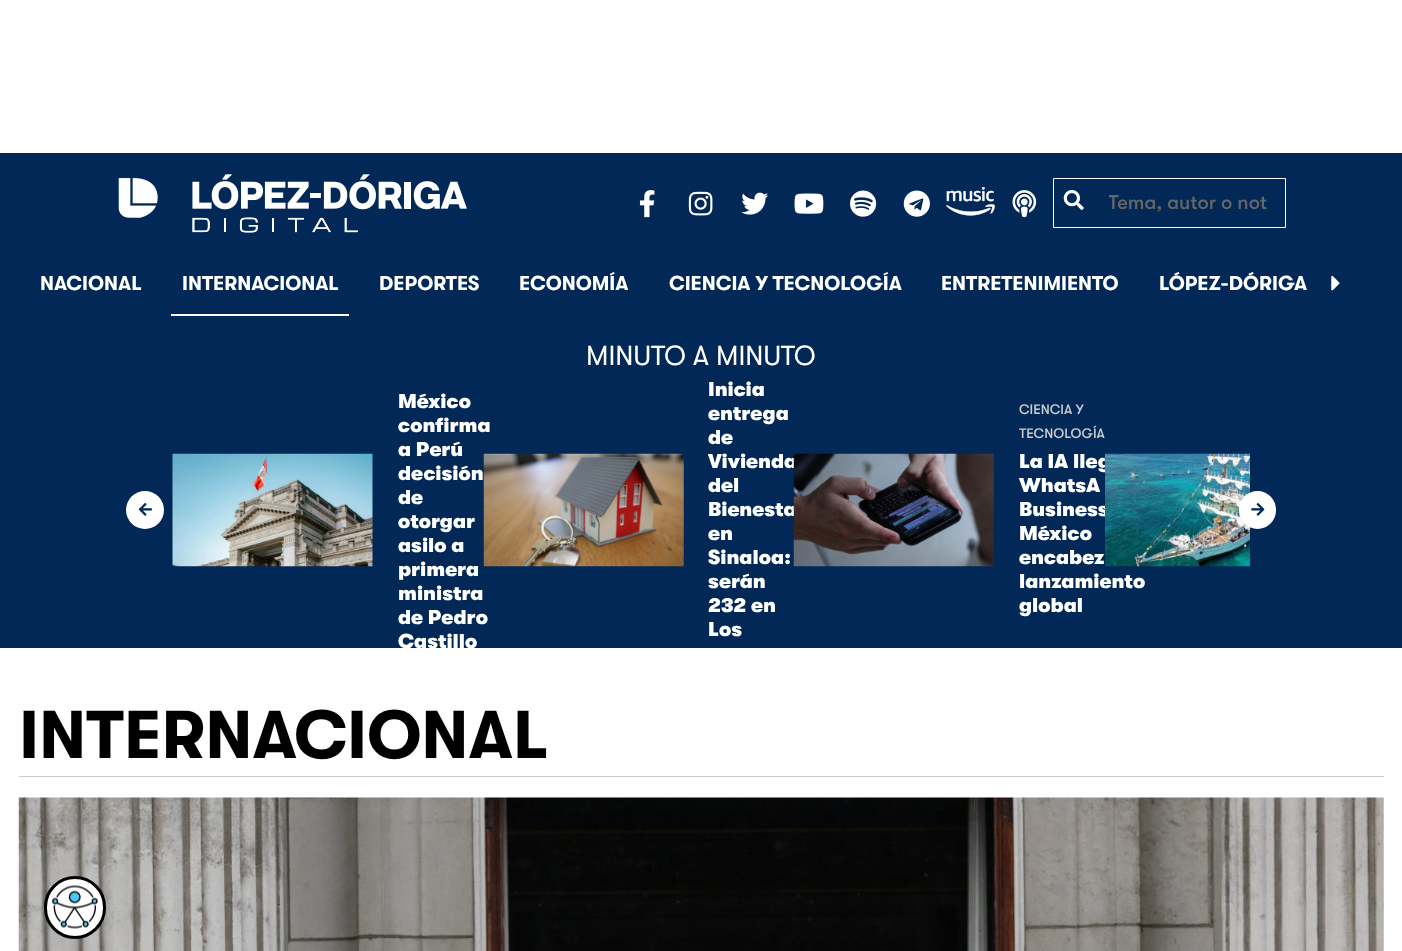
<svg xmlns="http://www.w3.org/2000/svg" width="1402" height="951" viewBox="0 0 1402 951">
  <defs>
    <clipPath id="clip1"><path d="M1109 191h161v23H1109z"/></clipPath>
    <clipPath id="clip2"><path d="M153 373h1097v275H153z"/></clipPath>
  </defs>
  <rect width="100%" height="100%" fill="#fff"/>
  <path d="M0 153h1402v100H0z" fill="#012857"/>
  <image x="118" y="174" width="349" height="59" href="img/1.png"/>
  <image x="639" y="190" width="16" height="28" href="img/2.png"/>
  <image x="688" y="191" width="25" height="25" href="img/3.png"/>
  <image x="741" y="192" width="28" height="23" href="img/4.png"/>
  <image x="794" y="193" width="30" height="21" href="img/5.png"/>
  <image x="850" y="190" width="27" height="27" href="img/6.png"/>
  <image x="903" y="190" width="27" height="27" href="img/7.png"/>
  <image x="946" y="187" width="49" height="29" href="img/8.png"/>
  <image x="1012" y="190" width="25" height="28" href="img/9.png"/>
  <path d="M1053.5 178.5h232v49H1053.5z" fill="none" stroke="#fff"/>
  <image x="1063" y="190" width="21" height="20" href="img/10.png"/>
  <path d="M0 253h1402v395H0z" fill="#012857"/>
  <path d="M171 314h178v2H171z" fill="#fff"/>
  <image x="1331" y="275" width="9" height="16" href="img/11.png"/>
  <circle cx="145" cy="510" r="19" fill="#fff"/>
  <image x="138" y="503" width="14" height="13" href="img/12.png"/>
  <image x="172" y="453" width="201" height="114" href="img/13.png"/>
  <image x="483" y="453" width="201" height="114" href="img/14.png"/>
  <path d="M19 776h1365v1H19z" fill="#ccc"/>
  <image x="18" y="797" width="1366" height="154" href="img/18.png"/>
  <rect x="45.5" y="877.5" width="59" height="60" rx="29.5" fill="#fff" stroke="#000" stroke-width="3"/>
  <image x="52" y="885" width="46" height="44" href="img/19.png"/>
  <g clip-path="url(#clip1)">
    <text x="1108" y="209" font-family="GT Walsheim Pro" font-size="20" font-weight="500" fill="#666">Tema, autor o not</text>
  </g>
  <g font-family="GT Walsheim Pro" font-size="20" font-weight="bold" fill="#fff">
    <text x="40" y="290">NACIONAL</text>
    <text x="182" y="290">INTERNACIONAL</text>
    <text x="379" y="290">DEPORTES</text>
    <text x="519" y="290">ECONOMÍA</text>
    <text x="669" y="290">CIENCIA Y TECNOLOGÍA</text>
    <text x="941" y="290">ENTRETENIMIENTO</text>
    <text x="1159" y="290">LÓPEZ-DÓRIGA</text>
  </g>
  <text x="586" y="365" font-family="GT Walsheim Pro" font-size="27.5" fill="#fff">MINUTO A MINUTO</text>
  <g font-family="GT Walsheim Pro" font-size="20" font-weight="900" fill="#fff">
    <text x="398" y="408">México</text>
    <text x="398" y="432">confirma</text>
    <text x="398" y="456">a Perú</text>
    <text x="398" y="480">decisión</text>
    <text x="398" y="504">de</text>
    <text x="398" y="528">otorgar</text>
    <text x="398" y="552">asilo a</text>
    <text x="398" y="576">primera</text>
    <text x="398" y="600">ministra</text>
    <text x="398" y="624">de Pedro</text>
  </g>
  <g clip-path="url(#clip2)">
    <text x="398" y="648" font-family="GT Walsheim Pro" font-size="20" font-weight="900" fill="#fff">Castillo</text>
  </g>
  <g font-family="GT Walsheim Pro" font-size="20" font-weight="900" fill="#fff">
    <text x="708" y="396">Inicia</text>
    <text x="708" y="420">entrega</text>
    <text x="708" y="444">de</text>
    <text x="708" y="468">Vivienda</text>
    <text x="708" y="492">del</text>
    <text x="708" y="516">Bienesta</text>
    <text x="708" y="540">en</text>
    <text x="708" y="564">Sinaloa:</text>
    <text x="708" y="588">serán</text>
    <text x="708" y="612">232 en</text>
    <text x="708" y="636">Los</text>
  </g>
  <image x="793" y="453" width="201" height="114" href="img/15.png"/>
  <g font-family="GT Walsheim Pro" font-size="13.75" font-weight="500" fill="#ccc">
    <text x="1019" y="414">CIENCIA Y</text>
    <text x="1019" y="438">TECNOLOGÍA</text>
  </g>
  <g font-family="GT Walsheim Pro" font-size="20" font-weight="900" fill="#fff">
    <text x="1019" y="468">La IA lleg</text>
    <text x="1019" y="492">WhatsA</text>
    <text x="1019" y="516">Business</text>
    <text x="1019" y="540">México</text>
    <text x="1019" y="564">encabez</text>
    <text x="1019" y="588">lanzamiento</text>
    <text x="1019" y="612">global</text>
  </g>
  <image x="1105" y="453" width="145" height="114" href="img/16.png"/>
  <rect x="1239" y="491" width="37" height="38" rx="18.5" fill="#fff"/>
  <image x="1251" y="503" width="14" height="13" href="img/17.png"/>
  <text x="19" y="758" font-family="GT Walsheim Pro" font-size="67.5" font-weight="bold" fill="#000">INTERNACIONAL</text>
</svg>
